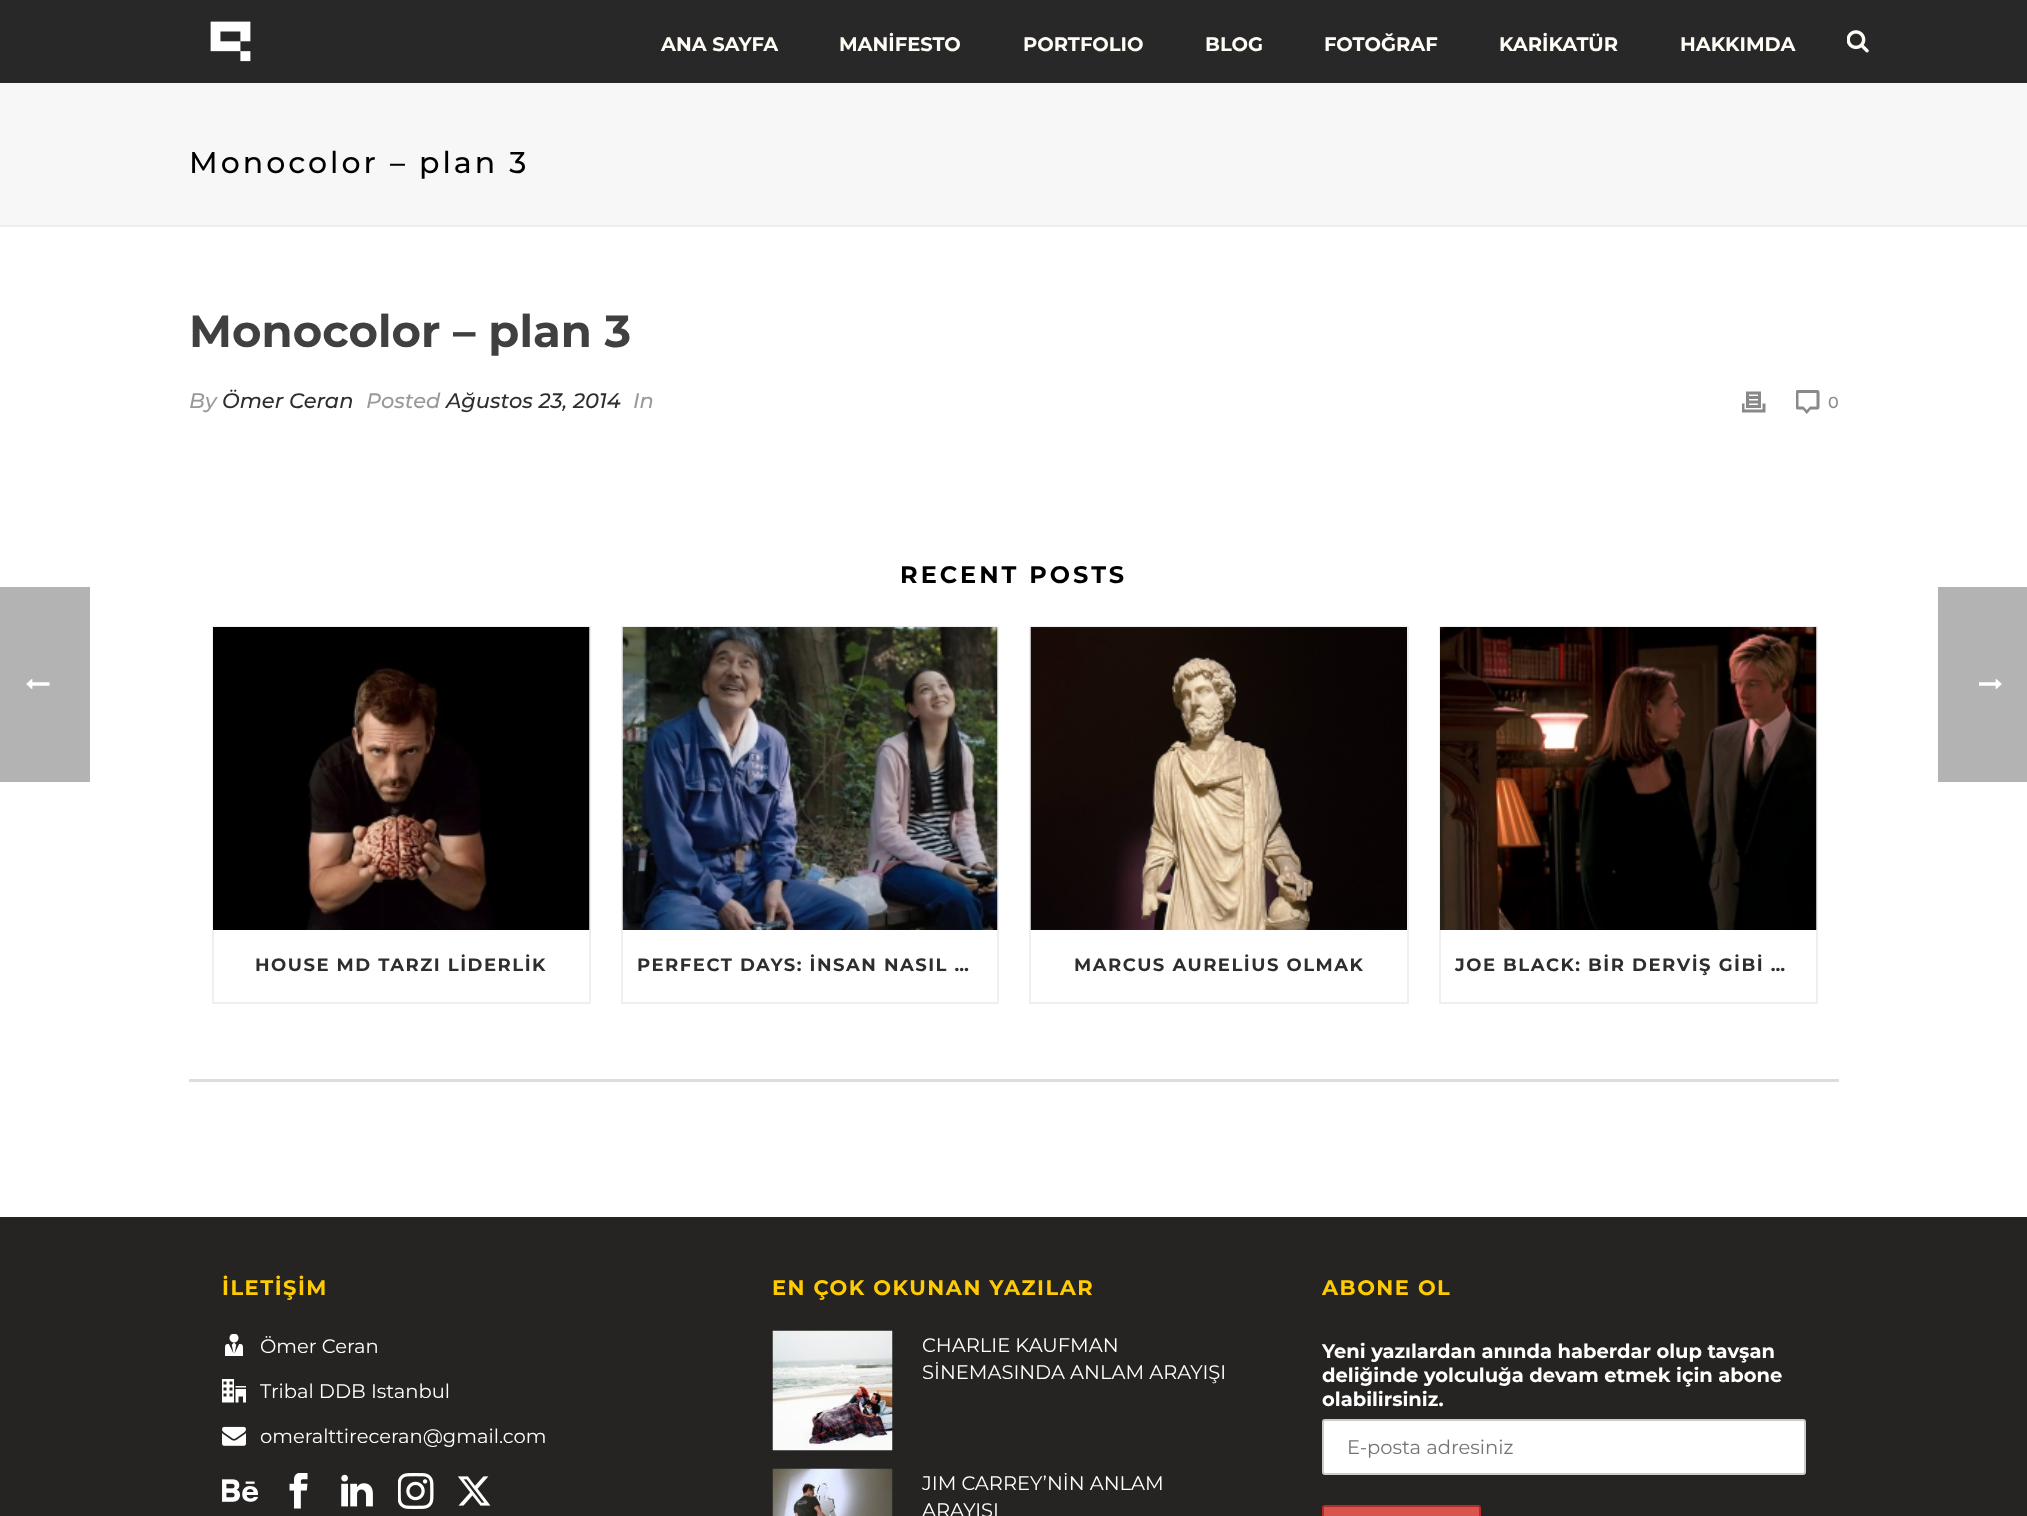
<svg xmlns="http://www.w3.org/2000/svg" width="2027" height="1516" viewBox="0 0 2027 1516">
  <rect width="100%" height="100%" fill="#fff"/>
  <path d="M0 587h90v195H0z" fill="#b3b3b3"/>
  <image x="26" y="679" width="24" height="10" href="img/1.png"/>
  <path d="M0 83h2027v142H0z" fill="#f7f7f7"/>
  <path d="M0 225h2027v2H0z" fill="#ededed"/>
  <path d="M0 0h2027v83H0z" fill="#282828"/>
  <image x="210" y="21" width="41" height="41" href="img/2.png"/>
  <image x="1847" y="30" width="22" height="23" href="img/3.png"/>
  <image x="1742" y="391" width="24" height="22" href="img/4.png"/>
  <image x="1796" y="390" width="24" height="24" href="img/5.png"/>
  <path d="M189 1079h1650v3H189z" fill="#ddd"/>
  <path d="M213 627h377v376H213z" fill="none" stroke="#efefef" stroke-width="2"/>
  <image x="213" y="627" width="377" height="303" href="img/6.png"/>
  <path d="M622 627h376v376H622z" fill="none" stroke="#efefef" stroke-width="2"/>
  <image x="622" y="627" width="376" height="303" href="img/7.png"/>
  <path d="M1030 627h378v376H1030z" fill="none" stroke="#efefef" stroke-width="2"/>
  <image x="1030" y="627" width="377" height="303" href="img/8.png"/>
  <path d="M1440 627h377v376H1440z" fill="none" stroke="#efefef" stroke-width="2"/>
  <image x="1440" y="627" width="377" height="303" href="img/9.png"/>
  <path d="M0 1217h2027v299H0z" fill="#252422"/>
  <image x="225" y="1334" width="18" height="22" href="img/10.png"/>
  <image x="222" y="1379" width="24" height="24" href="img/11.png"/>
  <image x="222" y="1426" width="24" height="20" href="img/12.png"/>
  <image x="222" y="1479" width="36" height="23" href="img/13.png"/>
  <image x="289" y="1473" width="19" height="36" href="img/14.png"/>
  <image x="341" y="1474" width="32" height="33" href="img/15.png"/>
  <image x="398" y="1473" width="36" height="36" href="img/16.png"/>
  <image x="458" y="1476" width="33" height="30" href="img/17.png"/>
  <image x="772" y="1330" width="121" height="121" href="img/18.png"/>
  <image x="772" y="1468" width="121" height="48" href="img/19.png"/>
  <rect x="1323" y="1420" width="482" height="54" rx="2" fill="#fff" stroke="#ccc" stroke-width="2"/>
  <rect x="1323" y="1506" width="157" height="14" rx="2" fill="#d9534f" stroke="#b52b27" stroke-width="2"/>
  <path d="M1938 587h89v195H1938z" fill="#b3b3b3"/>
  <image x="1979" y="679" width="23" height="10" href="img/20.png"/>
  <g font-family="Montserrat" font-size="19.5" font-weight="bold" fill="#fffcf5">
    <text x="661" y="51">ANA SAYFA</text>
    <text x="839" y="51">MANİFESTO</text>
    <text x="1023" y="51">PORTFOLIO</text>
    <text x="1205" y="51">BLOG</text>
    <text x="1324" y="51">FOTOĞRAF</text>
    <text x="1499" y="51">KARİKATÜR</text>
    <text x="1680" y="51">HAKKIMDA</text>
  </g>
  <text x="189" y="173" font-family="Montserrat" font-size="30" font-weight="500" letter-spacing="3" fill="#000">Monocolor – plan 3</text>
  <text x="189" y="347" font-family="Montserrat" font-size="45" font-weight="bold" fill="#404040">Monocolor – plan 3</text>
  <text x="189" y="408" font-family="Montserrat" font-size="21" font-weight="500" font-style="italic" fill="#999">By</text>
  <text x="222" y="408" font-family="Montserrat" font-size="21" font-weight="500" font-style="italic" fill="#2e2e2e">Ömer Ceran</text>
  <text x="366" y="408" font-family="Montserrat" font-size="21" font-weight="500" font-style="italic" fill="#999">Posted</text>
  <text x="446" y="408" font-family="Montserrat" font-size="21" font-weight="500" font-style="italic" fill="#2e2e2e">Ağustos 23, 2014</text>
  <text x="633" y="408" font-family="Montserrat" font-size="21" font-weight="500" font-style="italic" fill="#999">In</text>
  <text x="1828" y="408" font-family="Montserrat" font-size="16" font-weight="500" fill="#898989">0</text>
  <text x="900" y="583" font-family="Montserrat" font-size="24" font-weight="bold" letter-spacing="3" fill="#000">RECENT POSTS</text>
  <g font-family="Montserrat" font-size="18" font-weight="bold" letter-spacing="1.5" fill="#2e2e2e">
    <text x="255" y="971">HOUSE MD TARZI LİDERLİK</text>
    <text x="637" y="971">PERFECT DAYS: İNSAN NASIL …</text>
    <text x="1074" y="971">MARCUS AURELİUS OLMAK</text>
    <text x="1455" y="971">JOE BLACK: BİR DERVİŞ GİBİ …</text>
  </g>
  <text x="222" y="1295" font-family="Montserrat" font-size="21" font-weight="bold" letter-spacing="1.5" fill="#ffcb05">İLETİŞİM</text>
  <g font-family="Montserrat" font-size="19.5" fill="#fff">
    <text x="260" y="1353">Ömer Ceran</text>
    <text x="260" y="1398">Tribal DDB Istanbul</text>
    <text x="260" y="1443">omeralttireceran@gmail.com</text>
  </g>
  <text x="772" y="1295" font-family="Montserrat" font-size="21" font-weight="bold" letter-spacing="1.5" fill="#ffcb05">EN ÇOK OKUNAN YAZILAR</text>
  <g font-family="Montserrat" font-size="19.5" fill="#fff">
    <text x="922" y="1352">CHARLIE KAUFMAN</text>
    <text x="922" y="1379">SİNEMASINDA ANLAM ARAYIŞI</text>
    <text x="922" y="1490">JIM CARREY’NİN ANLAM</text>
    <text x="922" y="1517">ARAYIŞI</text>
  </g>
  <text x="1322" y="1295" font-family="Montserrat" font-size="21" font-weight="bold" letter-spacing="1.5" fill="#ffcb05">ABONE OL</text>
  <g font-family="Montserrat" font-size="19.5" font-weight="bold" fill="#fff">
    <text x="1322" y="1358">Yeni yazılardan anında haberdar olup tavşan</text>
    <text x="1322" y="1382">deliğinde yolculuğa devam etmek için abone</text>
    <text x="1322" y="1406">olabilirsiniz.</text>
  </g>
  <text x="1347" y="1454" font-family="Montserrat" font-size="19.5" fill="#757575">E-posta adresiniz</text>
</svg>
